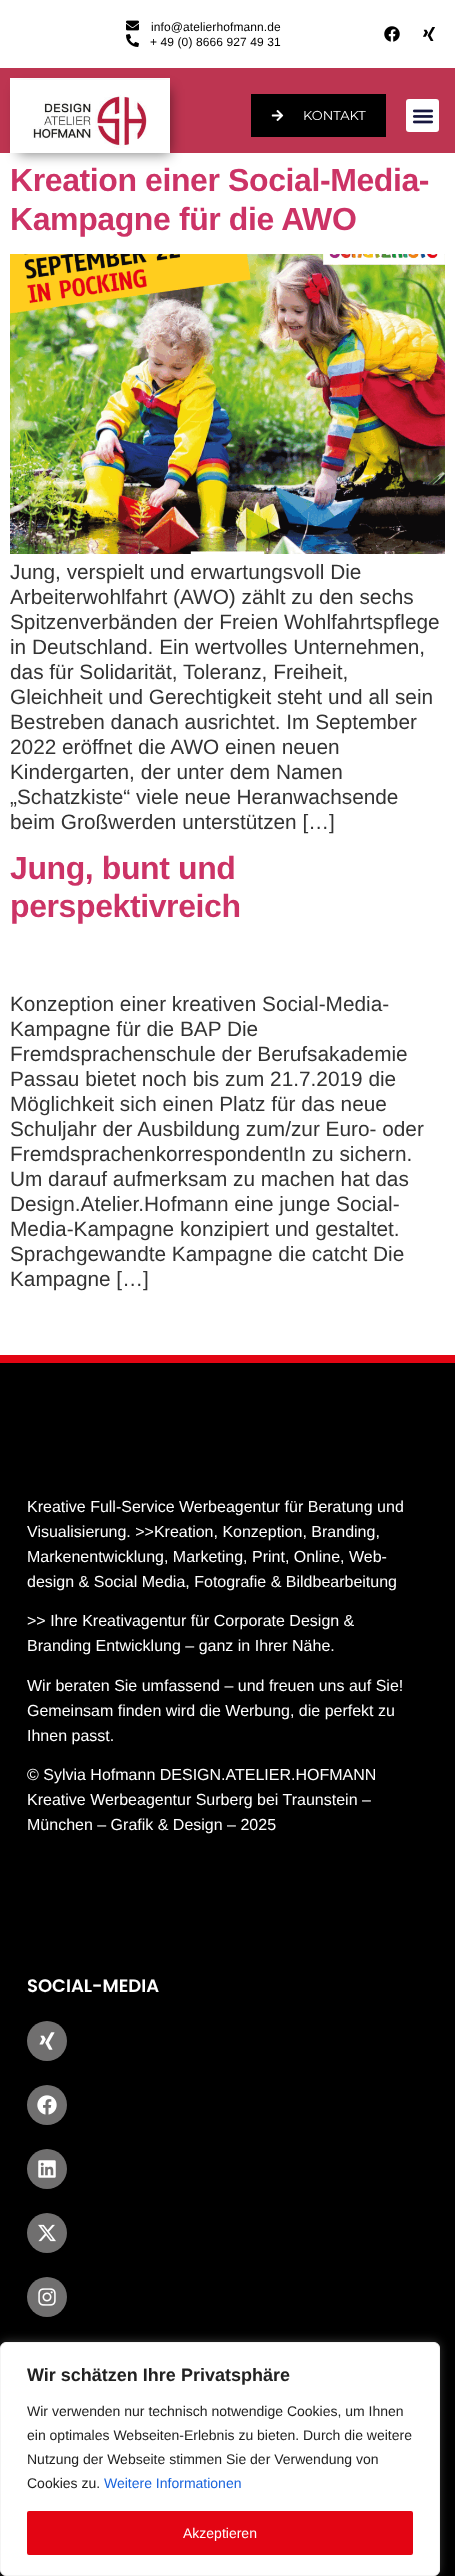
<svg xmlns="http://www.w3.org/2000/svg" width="455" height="2576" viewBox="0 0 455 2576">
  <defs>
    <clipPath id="clip1"><path d="M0 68H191V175H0ZM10 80H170V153H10Z" clip-rule="evenodd"/></clipPath>
  </defs>
  <rect width="100%" height="100%" fill="#fff"/>
  <image x="126" y="20" width="13" height="11" href="img/1.png"/>
  <image x="126" y="34" width="13" height="13" href="img/2.png"/>
  <image x="384" y="26" width="16" height="16" href="img/3.png"/>
  <image x="423" y="27" width="12" height="14" href="img/4.png"/>
  <path d="M0 68h455v85H0z" fill="#bd3551"/>
  <path d="M10 78h160v75H10z" fill="#fff"/>
  <g clip-path="url(#clip1)">
    <path d="M18 89h152v65H18z" fill="#00000080" filter="blur(6.5px)"/>
  </g>
  <image x="31" y="95" width="116" height="53" href="img/5.png"/>
  <path d="M251 94h135v43H251z" fill="#000"/>
  <image x="271" y="110" width="13" height="11" href="img/6.png"/>
  <rect x="406" y="99" width="33" height="33" rx="3" fill="#fff"/>
  <image x="412" y="109" width="22" height="15" href="img/7.png"/>
  <image x="10" y="254" width="435" height="300" href="img/8.png"/>
  <path d="M0 1363h455v1213H0z" fill="#000"/>
  <path d="M0 1355h455v8H0z" fill="#e30513"/>
  <circle cx="47" cy="2041" r="20" fill="#706f6f"/>
  <image x="39" y="2032" width="16" height="18" href="img/9.png"/>
  <circle cx="47" cy="2105" r="20" fill="#706f6f"/>
  <image x="37" y="2095" width="20" height="20" href="img/10.png"/>
  <circle cx="47" cy="2169" r="20" fill="#706f6f"/>
  <image x="38" y="2160" width="18" height="18" href="img/11.png"/>
  <circle cx="47" cy="2233" r="20" fill="#706f6f"/>
  <image x="38" y="2224" width="18" height="18" href="img/12.png"/>
  <circle cx="47" cy="2297" r="20" fill="#706f6f"/>
  <image x="38" y="2288" width="18" height="18" href="img/13.png"/>
  <rect y="2341" width="440" height="234" rx="6" fill="#acabab4d" filter="blur(5px)"/>
  <rect x="0.5" y="2342.5" width="439" height="233" rx="5.5" fill="#fff" stroke="#f4f4f4"/>
  <rect x="28" y="2512" width="384" height="42" rx="1" fill="#e30513" stroke="#e30513" stroke-width="2"/>
  <g font-family="Liberation Sans" font-size="12" letter-spacing="0.1" fill="#000">
    <text x="151" y="31">info@atelierhofmann.de</text>
    <text x="150" y="46">+ 49 (0) 8666 927 49 31</text>
  </g>
  <text x="303" y="120" font-family="Montserrat" font-size="13" fill="#fff">KONTAKT</text>
  <g font-family="Liberation Sans" font-size="32" font-weight="bold" letter-spacing="-0.4" fill="#c36">
    <text x="10" y="191">Kreation einer Social-Media-</text>
    <text x="10" y="230">Kampagne für die AWO</text>
  </g>
  <g font-family="Liberation Sans" font-size="20.8" fill="#333">
    <text x="10" y="579">Jung, verspielt und erwartungsvoll Die</text>
    <text x="10" y="604">Arbeiterwohlfahrt (AWO) zählt zu den sechs</text>
    <text x="10" y="629">Spitzenverbänden der Freien Wohlfahrtspflege</text>
    <text x="10" y="654">in Deutschland. Ein wertvolles Unternehmen,</text>
    <text x="10" y="679">das für Solidarität, Toleranz, Freiheit,</text>
    <text x="10" y="704">Gleichheit und Gerechtigkeit steht und all sein</text>
    <text x="10" y="729">Bestreben danach ausrichtet. Im September</text>
    <text x="10" y="754">2022 eröffnet die AWO einen neuen</text>
    <text x="10" y="779">Kindergarten, der unter dem Namen</text>
    <text x="10" y="804">„Schatzkiste“ viele neue Heranwachsende</text>
    <text x="10" y="829">beim Großwerden unterstützen […]</text>
  </g>
  <g font-family="Liberation Sans" font-size="32" font-weight="bold" letter-spacing="-0.4" fill="#c36">
    <text x="10" y="879">Jung, bunt und</text>
    <text x="10" y="917">perspektivreich</text>
  </g>
  <g font-family="Liberation Sans" font-size="20.8" fill="#333">
    <text x="10" y="1011">Konzeption einer kreativen Social-Media-</text>
    <text x="10" y="1036">Kampagne für die BAP Die</text>
    <text x="10" y="1061">Fremdsprachenschule der Berufsakademie</text>
    <text x="10" y="1086">Passau bietet noch bis zum 21.7.2019 die</text>
    <text x="10" y="1111">Möglichkeit sich einen Platz für das neue</text>
    <text x="10" y="1136">Schuljahr der Ausbildung zum/zur Euro- oder</text>
    <text x="10" y="1161">FremdsprachenkorrespondentIn zu sichern.</text>
    <text x="10" y="1186">Um darauf aufmerksam zu machen hat das</text>
    <text x="10" y="1211">Design.Atelier.Hofmann eine junge Social-</text>
    <text x="10" y="1236">Media-Kampagne konzipiert und gestaltet.</text>
    <text x="10" y="1261">Sprachgewandte Kampagne die catcht Die</text>
    <text x="10" y="1286">Kampagne […]</text>
  </g>
  <g font-family="Liberation Sans" font-size="16" fill="#fff">
    <text x="27" y="1512">Kreative Full-Service Werbeagentur für Beratung und</text>
    <text x="27" y="1537">Visualisierung. &gt;&gt;Kreation, Konzeption, Branding,</text>
    <text x="27" y="1562">Markenentwicklung, Marketing, Print, Online, Web-</text>
    <text x="27" y="1587">design &amp; Social Media, Fotografie &amp; Bildbearbeitung</text>
    <text x="27" y="1626">&gt;&gt; Ihre Kreativagentur für Corporate Design &amp;</text>
    <text x="27" y="1651">Branding Entwicklung – ganz in Ihrer Nähe.</text>
    <text x="27" y="1691">Wir beraten Sie umfassend – und freuen uns auf Sie!</text>
    <text x="27" y="1716">Gemeinsam finden wird die Werbung, die perfekt zu</text>
    <text x="27" y="1741">Ihnen passt.</text>
    <text x="27" y="1780">© Sylvia Hofmann DESIGN.ATELIER.HOFMANN</text>
    <text x="27" y="1805">Kreative Werbeagentur Surberg bei Traunstein –</text>
    <text x="27" y="1830">München – Grafik &amp; Design – 2025</text>
  </g>
  <text x="27" y="1992" font-family="Poppins" font-size="18" font-weight="600" fill="#fff">SOCIAL-MEDIA</text>
  <text x="27" y="2381" font-family="Liberation Sans" font-size="18" font-weight="bold" fill="#212121">Wir schätzen Ihre Privatsphäre</text>
  <g font-family="Liberation Sans" font-size="14" fill="#212121">
    <text x="27" y="2416">Wir verwenden nur technisch notwendige Cookies, um Ihnen</text>
    <text x="27" y="2440">ein optimales Webseiten-Erlebnis zu bieten. Durch die weitere</text>
    <text x="27" y="2464">Nutzung der Webseite stimmen Sie der Verwendung von</text>
    <text x="27" y="2488">Cookies zu.</text>
  </g>
  <text x="104" y="2488" font-family="Liberation Sans" font-size="14" fill="#1863dc">Weitere Informationen</text>
  <text x="183" y="2538" font-family="Liberation Sans" font-size="14" fill="#fff">Akzeptieren</text>
</svg>
